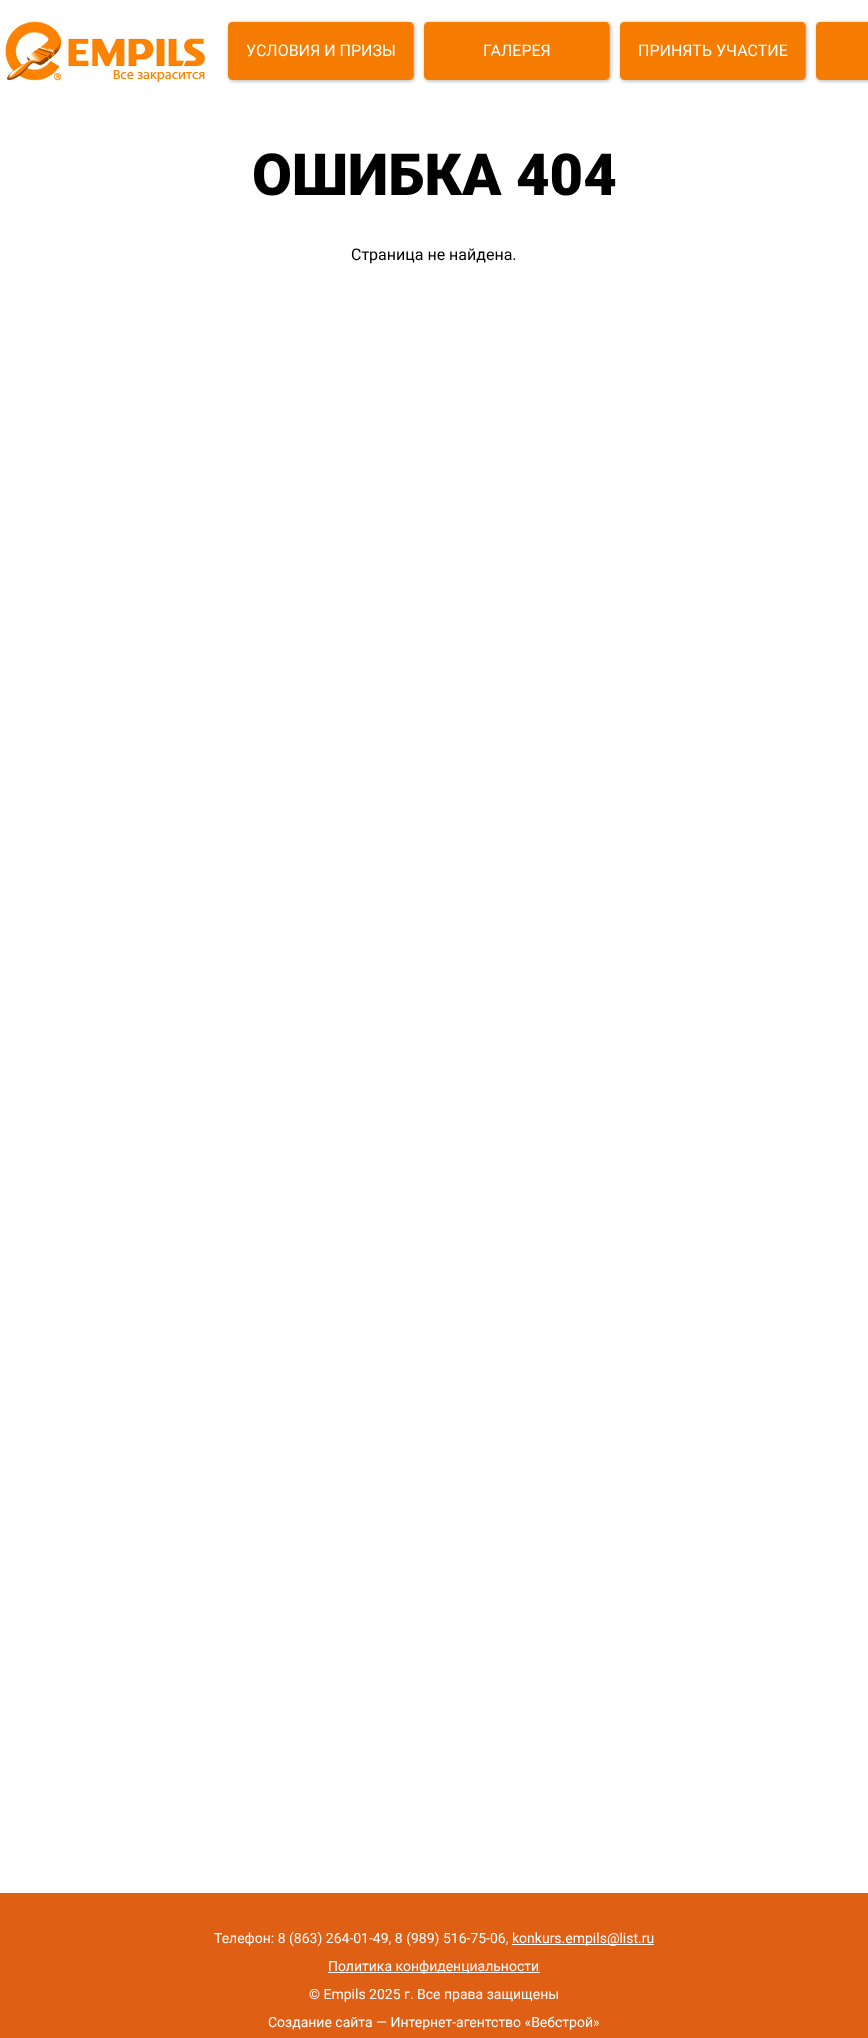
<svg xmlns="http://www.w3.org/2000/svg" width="868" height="2038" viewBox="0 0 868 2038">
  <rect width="100%" height="100%" fill="#fff"/>
  <image x="5" y="21" width="201" height="61" href="img/1.png"/>
  <image x="226" y="20" width="192" height="64" href="img/2.png"/>
  <image x="422" y="20" width="192" height="64" href="img/2.png"/>
  <image x="618" y="20" width="192" height="64" href="img/2.png"/>
  <image x="814" y="20" width="54" height="64" href="img/3.png"/>
  <path d="M0 1893h868v145H0z" fill="#df5f15"/>
  <path d="M512 1944h142v1H512z" fill="#fff"/>
  <path d="M328 1972h212v1H328z" fill="#fff"/>
  <g font-family="Roboto" font-size="16" fill="#fff">
    <text x="246" y="56">УСЛОВИЯ И ПРИЗЫ</text>
    <text x="483" y="56">ГАЛЕРЕЯ</text>
    <text x="638" y="56">ПРИНЯТЬ УЧАСТИЕ</text>
  </g>
  <text x="252" y="195" font-family="Roboto" font-size="58" font-weight="900" fill="#000">ОШИБКА 404</text>
  <text x="351" y="260" font-family="Roboto" font-size="16" fill="#000">Страница не найдена.</text>
  <g font-family="Roboto" font-size="14" fill="#fff">
    <text x="214" y="1943">Телефон: 8 (863) 264-01-49, 8 (989) 516-75-06,</text>
    <text x="512" y="1943">konkurs.empils@list.ru</text>
    <text x="328" y="1971">Политика конфиденциальности</text>
    <text x="309" y="1999">© Empils 2025 г. Все права защищены</text>
    <text x="268" y="2027">Создание сайта — Интернет-агентство «Вебстрой»</text>
  </g>
</svg>
